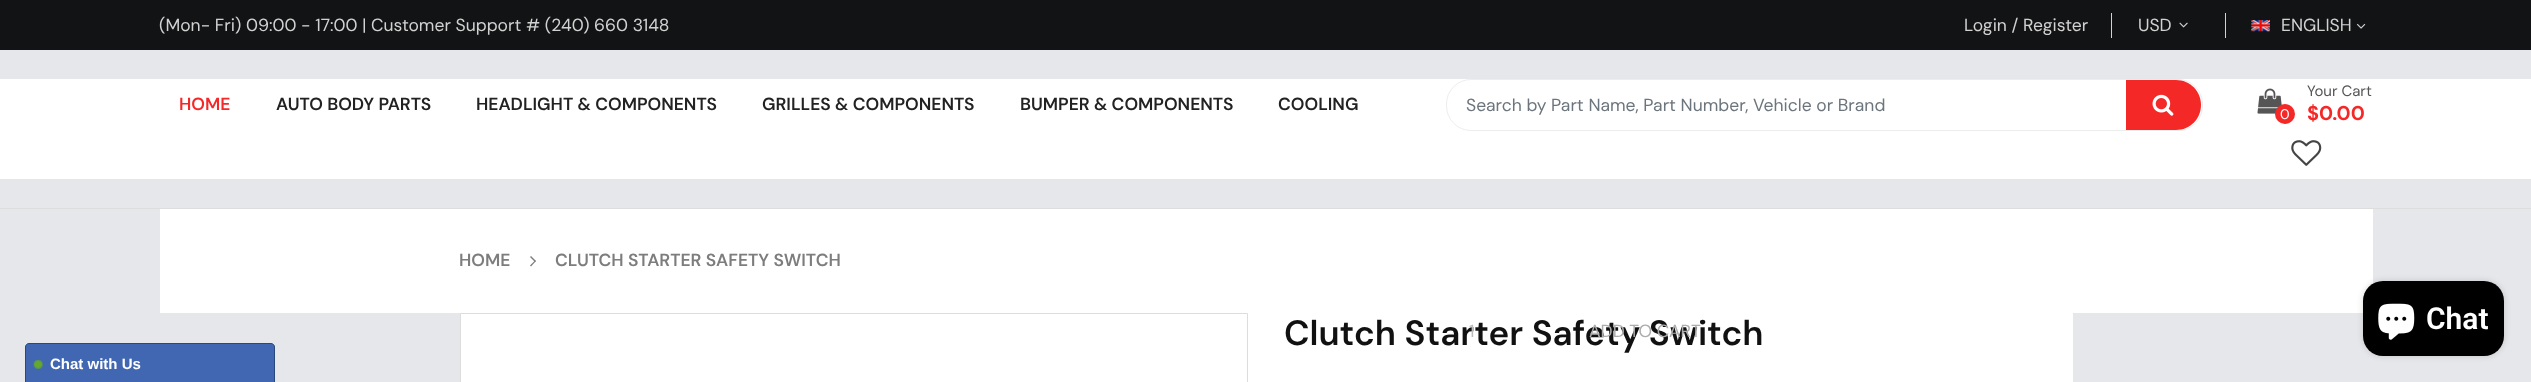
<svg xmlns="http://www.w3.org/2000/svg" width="2531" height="382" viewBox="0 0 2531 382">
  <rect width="100%" height="100%" fill="#e5e7eb"/>
  <path d="M0 208h2531v1H0z" fill="#ddd"/>
  <path d="M0 0h2531v50H0z" fill="#111314"/>
  <path d="M2111 13h1v25H2111z" fill="#d2d2d2"/>
  <image x="2179" y="22" width="9" height="6" href="img/1.png"/>
  <path d="M2225 13h1v25H2225z" fill="#d2d2d2"/>
  <image x="2251" y="20" width="19" height="12" href="img/2.png"/>
  <image x="2356" y="23" width="10" height="6" href="img/3.png"/>
  <path d="M0 79h2531v100H0z" fill="#fff"/>
  <rect x="1446.5" y="79.5" width="756" height="51" rx="24.5" fill="none" stroke="#ededed"/>
  <path d="M2126 80H2176C2190 80 2201 91 2201 105C2201 119 2190 130 2176 130H2126Z" fill="#f52828"/>
  <image x="2152" y="94" width="22" height="22" href="img/4.png"/>
  <image x="2257" y="88" width="25" height="26" href="img/5.png"/>
  <circle cx="2285" cy="114" r="10" fill="#f52828"/>
  <image x="2291" y="140" width="31" height="26" href="img/6.png"/>
  <path d="M160 209h2213v104H160z" fill="#fff"/>
  <path d="M531 256L536 261L535 262L530 257Z" fill="#7d7d7d"/>
  <path d="M535 260.5L536 261L531 266.5L530 265.5Z" fill="#7d7d7d"/>
  <path d="M461 313h1612v69H461z" fill="#fff"/>
  <path d="M460.5 313.5h787v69H460.5z" fill="none" stroke="#ddd"/>
  <rect x="2363" y="281" width="141" height="75" rx="20" fill="#00000026" filter="blur(3px)"/>
  <rect x="2363" y="281" width="141" height="75" rx="20" fill="#000"/>
  <image x="2378" y="303" width="37" height="37" href="img/7.png"/>
  <path d="M29 343.5H271C273 343.5 274.5 345 274.5 347V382.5H25.5V347C25.5 345 27 343.5 29 343.5Z" fill="#4267b2" stroke="#29487d"/>
  <image x="33" y="359" width="10" height="10" href="img/8.png"/>
  <g font-family="DM Sans" font-size="17.5" fill="#d2d2d2">
    <text x="159" y="31">(Mon- Fri) 09:00 - 17:00 | Customer Support # (240) 660 3148</text>
    <text x="1964" y="31">Login / Register</text>
    <text x="2138" y="31">USD</text>
    <text x="2281" y="31">ENGLISH</text>
  </g>
  <text x="179" y="110" font-family="DM Sans" font-size="17.5" font-weight="600" fill="#f52828">HOME</text>
  <g font-family="DM Sans" font-size="17.5" font-weight="600" fill="#222">
    <text x="276" y="110">AUTO BODY PARTS</text>
    <text x="476" y="110">HEADLIGHT &amp; COMPONENTS</text>
    <text x="762" y="110">GRILLES &amp; COMPONENTS</text>
    <text x="1020" y="110">BUMPER &amp; COMPONENTS</text>
    <text x="1278" y="110">COOLING</text>
  </g>
  <text x="1466" y="111" font-family="DM Sans" font-size="17.5" fill="#6c757d">Search by Part Name, Part Number, Vehicle or Brand</text>
  <text x="2307" y="96" font-family="DM Sans" font-size="15" fill="#555">Your Cart</text>
  <text x="2280" y="119" font-family="DM Sans" font-size="14" fill="#fff">0</text>
  <text x="2307" y="120" font-family="DM Sans" font-size="20" font-weight="bold" fill="#f52828">$0.00</text>
  <g font-family="DM Sans" font-size="17.5" font-weight="600" fill="#7d7d7d">
    <text x="459" y="266">HOME</text>
    <text x="555" y="266">CLUTCH STARTER SAFETY SWITCH</text>
  </g>
  <text x="1284" y="345" font-family="DM Sans" font-size="35" font-weight="600" fill="#111">Clutch Starter Safety Switch</text>
  <text x="1469" y="337" font-family="DM Sans" font-size="17.5" fill="#bbb">1</text>
  <text x="1589" y="337" font-family="DM Sans" font-size="17.5" fill="#adadad">ADD TO CART</text>
  <text x="2426" y="329" font-family="Roboto" font-size="30" font-weight="600" fill="#fff">Chat</text>
  <text x="50" y="369" font-family="Liberation Sans" font-size="15" font-weight="bold" fill="#fff">Chat with Us</text>
</svg>
